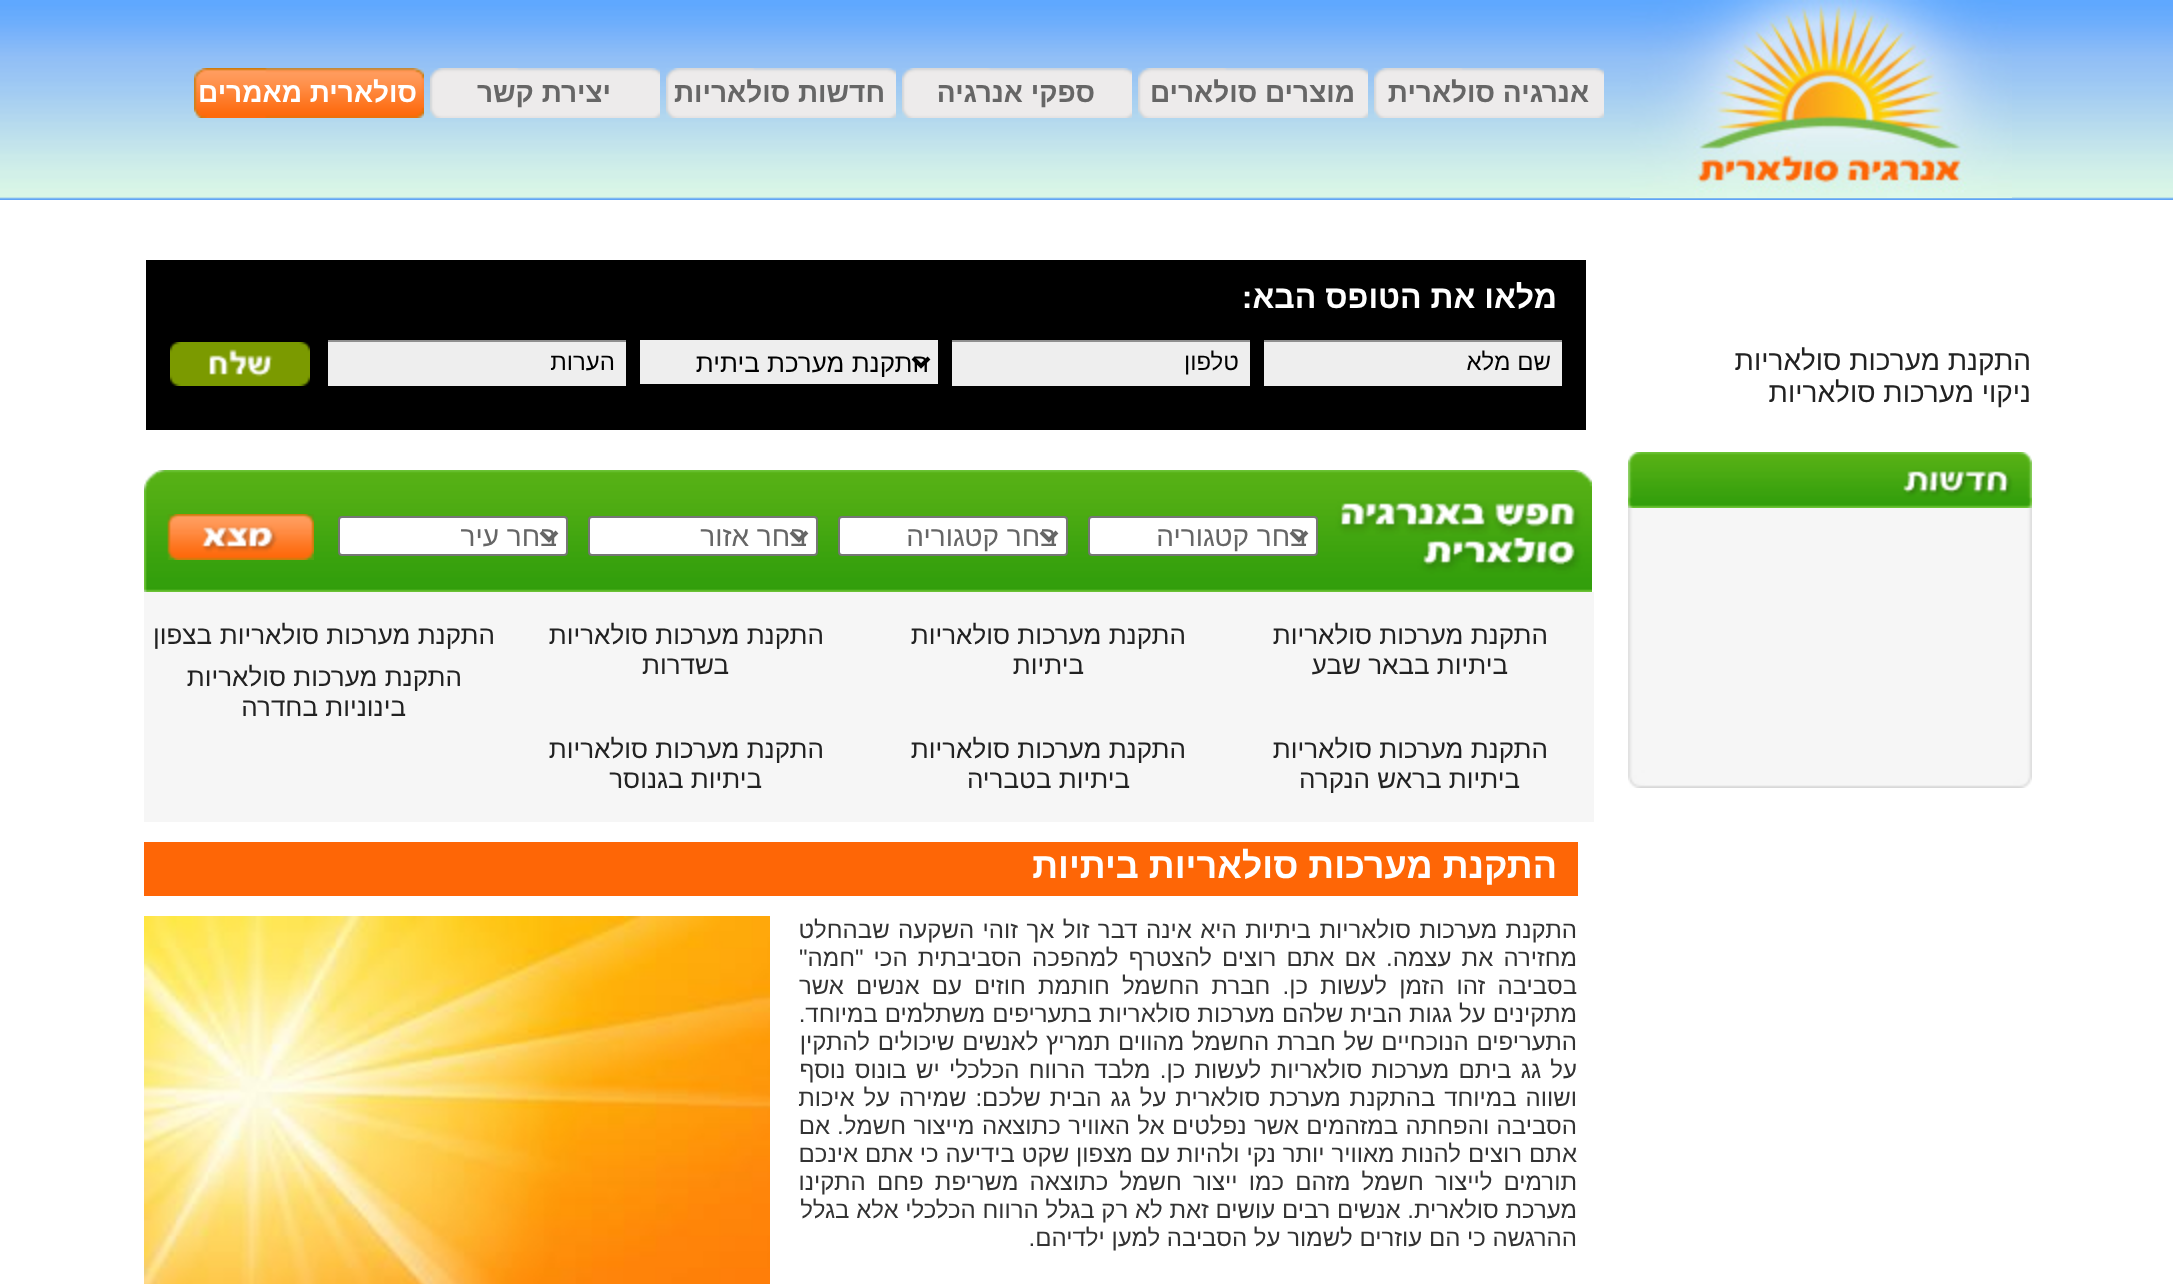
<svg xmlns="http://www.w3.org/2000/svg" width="2173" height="1284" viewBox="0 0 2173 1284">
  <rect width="100%" height="100%" fill="#fff"/>
  <image x="0" y="0" width="2173" height="200" href="img/1.png"/>
  <image x="1630" y="0" width="382" height="198" href="img/2.png"/>
  <image x="1374" y="68" width="230" height="50" href="img/3.png"/>
  <image x="1138" y="68" width="230" height="50" href="img/3.png"/>
  <image x="902" y="68" width="230" height="50" href="img/3.png"/>
  <image x="666" y="68" width="230" height="50" href="img/3.png"/>
  <image x="430" y="68" width="230" height="50" href="img/3.png"/>
  <image x="194" y="68" width="230" height="50" href="img/4.png"/>
  <image x="1628" y="452" width="404" height="56" href="img/5.png"/>
  <image x="1628" y="508" width="404" height="262" href="img/6.png"/>
  <image x="1628" y="770" width="404" height="18" href="img/7.png"/>
  <path d="M146 260h1440v170H146z" fill="#000"/>
  <path d="M1264 342h298v44H1264z" fill="#eee"/>
  <path d="M1264 340h298v2H1264z" fill="#8f8f8f"/>
  <path d="M952 342h298v44H952z" fill="#eee"/>
  <path d="M952 340h298v2H952z" fill="#8f8f8f"/>
  <path d="M640 340h298v44H640z" fill="#eee"/>
  <path d="M913 358L921 366L929 358" fill="none" stroke="#000" stroke-width="4"/>
  <path d="M328 342h298v44H328z" fill="#eee"/>
  <path d="M328 340h298v2H328z" fill="#8f8f8f"/>
  <image x="170" y="342" width="140" height="44" href="img/8.png"/>
  <image x="144" y="470" width="1448" height="122" href="img/9.png"/>
  <rect x="1089" y="517" width="228" height="38" rx="3" fill="#fff" stroke="#767676" stroke-width="2"/>
  <path d="M1291 532L1299 540L1307 532" fill="none" stroke="#666" stroke-width="4"/>
  <rect x="839" y="517" width="228" height="38" rx="3" fill="#fff" stroke="#767676" stroke-width="2"/>
  <path d="M1041 532L1049 540L1057 532" fill="none" stroke="#666" stroke-width="4"/>
  <rect x="589" y="517" width="228" height="38" rx="3" fill="#fff" stroke="#767676" stroke-width="2"/>
  <path d="M791 532L799 540L807 532" fill="none" stroke="#666" stroke-width="4"/>
  <rect x="339" y="517" width="228" height="38" rx="3" fill="#fff" stroke="#767676" stroke-width="2"/>
  <path d="M541 532L549 540L557 532" fill="none" stroke="#666" stroke-width="4"/>
  <image x="167" y="514" width="147" height="46" href="img/10.png"/>
  <path d="M144 592h1450v230H144z" fill="#f6f6f6"/>
  <path d="M144 842h1434v54H144z" fill="#fe6606"/>
  <image x="144" y="916" width="626" height="368" href="img/11.png"/>
  <g font-family="Liberation Sans" font-size="28" font-weight="bold" direction="rtl" fill="#666">
    <text x="1589" y="102">אנרגיה סולארית</text>
    <text x="1355" y="102">מוצרים סולארים</text>
    <text x="1095" y="102">ספקי אנרגיה</text>
    <text x="885" y="102">חדשות סולאריות</text>
    <text x="611" y="102">יצירת קשר</text>
  </g>
  <text x="417" y="102" font-family="Liberation Sans" font-size="28" font-weight="bold" direction="rtl" fill="#fff">סולארית מאמרים</text>
  <g font-family="Liberation Sans" font-size="28" direction="rtl" fill="#222">
    <text x="2031" y="370">התקנת מערכות סולאריות</text>
    <text x="2031" y="402">ניקוי מערכות סולאריות</text>
  </g>
  <text x="1557" y="308" font-family="Liberation Sans" font-size="32" font-weight="bold" direction="rtl" fill="#fff">מלאו את הטופס הבא:</text>
  <g font-family="Liberation Sans" font-size="24" direction="rtl" fill="#000">
    <text x="1551" y="370">שם מלא</text>
    <text x="1239" y="370">טלפון</text>
  </g>
  <text x="929" y="372" font-family="Liberation Sans" font-size="26" direction="rtl" fill="#000">התקנת מערכת ביתית</text>
  <text x="615" y="370" font-family="Liberation Sans" font-size="24" direction="rtl" fill="#000">הערות</text>
  <g font-family="Liberation Sans" font-size="28" direction="rtl" fill="#666">
    <text x="1307" y="546">בחר קטגוריה</text>
    <text x="1057" y="546">בחר קטגוריה</text>
    <text x="807" y="546">בחר אזור</text>
    <text x="557" y="546">בחר עיר</text>
  </g>
  <g font-family="Liberation Sans" font-size="26" direction="rtl" fill="#222">
    <text x="1548" y="644">התקנת מערכות סולאריות</text>
    <text x="1508" y="674">ביתיות בבאר שבע</text>
    <text x="1186" y="644">התקנת מערכות סולאריות</text>
    <text x="1084" y="674">ביתיות</text>
    <text x="824" y="644">התקנת מערכות סולאריות</text>
    <text x="729" y="674">בשדרות</text>
    <text x="495" y="644">התקנת מערכות סולאריות</text>
    <text x="212" y="644">בצפון</text>
    <text x="462" y="686">התקנת מערכות סולאריות</text>
    <text x="406" y="716">בינוניות בחדרה</text>
    <text x="1548" y="758">התקנת מערכות סולאריות</text>
    <text x="1520" y="788">ביתיות בראש הנקרה</text>
    <text x="1186" y="758">התקנת מערכות סולאריות</text>
    <text x="1130" y="788">ביתיות בטבריה</text>
    <text x="824" y="758">התקנת מערכות סולאריות</text>
    <text x="762" y="788">ביתיות בגנוסר</text>
  </g>
  <text x="1557" y="878" font-family="Liberation Sans" font-size="36" font-weight="bold" direction="rtl" fill="#fff">התקנת מערכות סולאריות ביתיות</text>
  <g font-family="Liberation Sans" font-size="24" direction="rtl" fill="#333">
    <text x="1577" y="938" word-spacing="1.75">התקנת מערכות סולאריות ביתיות היא אינה דבר זול אך זוהי השקעה שבהחלט</text>
    <text x="1577" y="966" word-spacing="3.5">מחזירה את עצמה. אם אתם רוצים להצטרף למהפכה הסביבתית הכי "חמה"</text>
    <text x="1577" y="994" word-spacing="5.5">בסביבה זהו הזמן לעשות כן. חברת החשמל חותמת חוזים עם אנשים אשר</text>
    <text x="1577" y="1022" word-spacing="0.25">מתקינים על גגות הבית שלהם מערכות סולאריות בתעריפים משתלמים במיוחד.</text>
    <text x="1577" y="1050" word-spacing="1">התעריפים הנוכחיים של חברת החשמל מהווים תמריץ לאנשים שיכולים להתקין</text>
    <text x="1577" y="1078" word-spacing="2.6">על גג ביתם מערכות סולאריות לעשות כן. מלבד הרווח הכלכלי יש בונוס נוסף</text>
    <text x="1577" y="1106" word-spacing="2.25">ושווה במיוחד בהתקנת מערכת סולארית על גג הבית שלכם: שמירה על איכות</text>
    <text x="1577" y="1134" word-spacing="0.75">הסביבה והפחתה במזהמים אשר נפלטים אל האוויר כתוצאה מייצור חשמל.</text>
    <text x="830" y="1134">אם</text>
    <text x="1577" y="1162" word-spacing="0.25">אתם רוצים להנות מאוויר יותר נקי ולהיות עם מצפון שקט בידיעה כי אתם אינכם</text>
    <text x="1577" y="1190" word-spacing="4.5">תורמים לייצור חשמל מזהם כמו ייצור חשמל כתוצאה משריפת פחם התקינו</text>
    <text x="1577" y="1218">מערכת סולארית. אנשים רבים עושים זאת לא רק בגלל הרווח הכלכלי אלא בגלל</text>
    <text x="1577" y="1246">ההרגשה כי הם עוזרים לשמור על הסביבה למען ילדיהם.</text>
  </g>
</svg>
